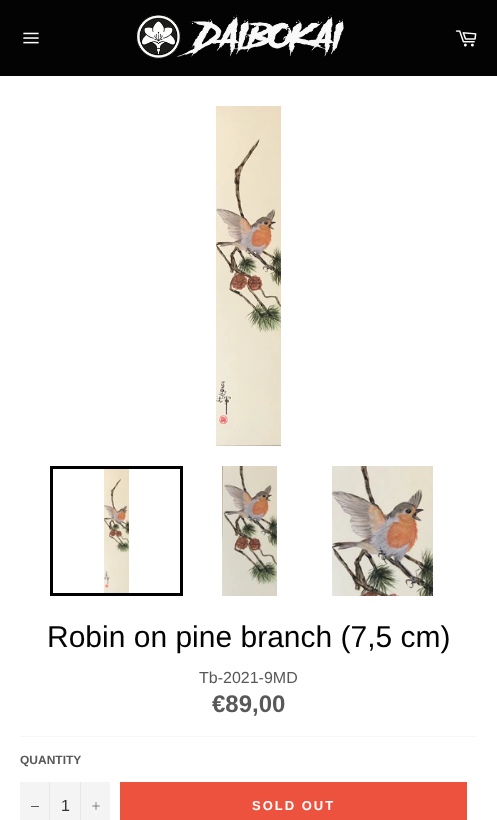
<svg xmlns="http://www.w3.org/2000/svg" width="497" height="820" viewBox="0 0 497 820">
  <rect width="100%" height="100%" fill="#030303"/>
  <image x="23" y="32" width="16" height="12" href="img/1.png"/>
  <image x="136" y="15" width="208" height="44" href="img/2.png"/>
  <image x="455" y="30" width="22" height="17" href="img/3.png"/>
  <path d="M0 76h497v744H0z" fill="#fff"/>
  <image x="216" y="106" width="65" height="340" href="img/4.png"/>
  <image x="104" y="469" width="25" height="124" href="img/5.png"/>
  <path d="M51.5 467.5h130v127H51.5z" fill="none" stroke="#000" stroke-width="3"/>
  <image x="222" y="466" width="55" height="130" href="img/6.png"/>
  <image x="332" y="466" width="101" height="130" href="img/7.png"/>
  <path d="M20 736h457v1H20z" fill="#f7f7f7"/>
  <path d="M20 782h90v38H20z" fill="#f4f4f4"/>
  <path d="M49 782h1v38H49z" fill="#e7e7e7"/>
  <path d="M31 806h8v1H31z" fill="#585858"/>
  <path d="M80 782h1v38H80z" fill="#e7e7e7"/>
  <image x="92" y="802" width="8" height="8" href="img/8.png"/>
  <path d="M120 782h347v38H120z" fill="#ec523e"/>
  <text x="47" y="647" font-family="Liberation Sans" font-size="30" fill="#030303">Robin on pine branch (7,5 cm)</text>
  <text x="199" y="683" font-family="Liberation Sans" font-size="16" fill="#585858">Tb-2021-9MD</text>
  <text x="212" y="712" font-family="Liberation Sans" font-size="24" font-weight="bold" fill="#585858">€89,00</text>
  <text x="20" y="764" font-family="Liberation Sans" font-size="12" font-weight="bold" fill="#585858">QUANTITY</text>
  <text x="61" y="811" font-family="Liberation Sans" font-size="16" fill="#333">1</text>
  <text x="252" y="810" font-family="Liberation Sans" font-size="13" font-weight="bold" letter-spacing="2" fill="#fff">SOLD OUT</text>
</svg>
